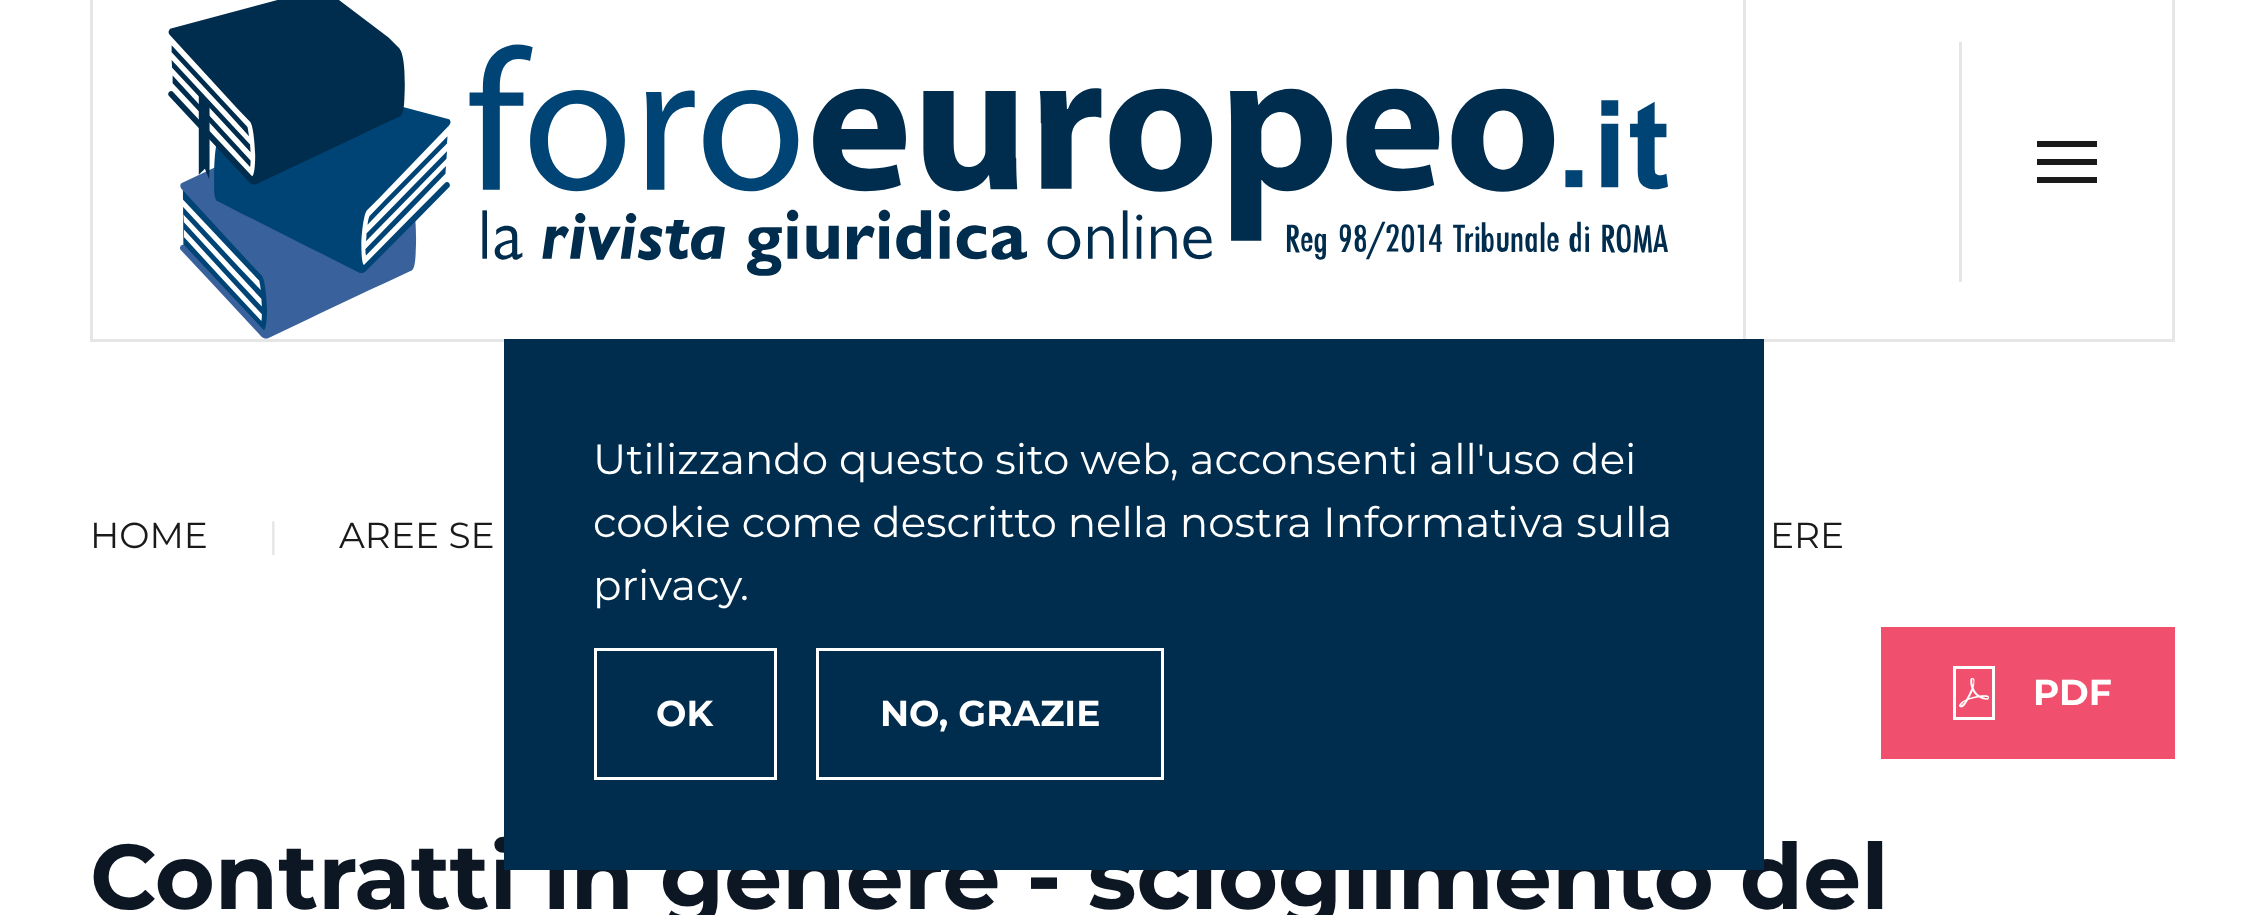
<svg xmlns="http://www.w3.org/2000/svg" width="2265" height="915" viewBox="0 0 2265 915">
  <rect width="100%" height="100%" fill="#fff"/>
  <path d="M91.5 -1.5h2082v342H91.5z" fill="none" stroke="#e6e6e6" stroke-width="3"/>
  <path d="M1743 0h3v339H1743z" fill="#e6e6e6"/>
  <image x="168" y="0" width="1500" height="339" href="img/1.png"/>
  <path d="M1959 42h3v240H1959z" fill="#e6e6e6"/>
  <path d="M2037 141h60v6H2037z" fill="#1a1a1a"/>
  <path d="M2037 159h60v6H2037z" fill="#1a1a1a"/>
  <path d="M2037 177h60v6H2037z" fill="#1a1a1a"/>
  <path d="M1881 627h294v132H1881z" fill="#f0506e"/>
  <image x="1953" y="666" width="42" height="54" href="img/2.png"/>
  <text x="90" y="548" font-family="'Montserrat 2'" font-size="36" font-weight="100" fill="#1a1a1a">HOME</text>
  <text x="268" y="548" font-family="'Montserrat 2'" font-size="36" font-weight="100" fill="#e6e6e6">|</text>
  <g font-family="'Montserrat 2'" font-size="36" font-weight="100" fill="#1a1a1a">
    <text x="339" y="548">AREE SE</text>
    <text x="1770" y="548">ERE</text>
  </g>
  <text x="2033" y="705" font-family="Montserrat" font-size="36" font-weight="100" fill="#fff">PDF</text>
  <text x="90" y="909" font-family="Montserrat" font-size="91.75" font-weight="100" fill="#0d1724">Contratti in genere - scioglimento del</text>
  <path d="M504 339h1260v531H504z" fill="#002d4d"/>
  <path d="M817.5 649.5h345v129H817.5z" fill="none" stroke="#fff" stroke-width="3"/>
  <text x="880" y="726" font-family="Montserrat" font-size="36" font-weight="100" fill="#fff">NO, GRAZIE</text>
  <path d="M595.5 649.5h180v129H595.5z" fill="none" stroke="#fff" stroke-width="3"/>
  <text x="656" y="726" font-family="Montserrat" font-size="36" font-weight="100" fill="#fff">OK</text>
  <g font-family="'Montserrat 2'" font-size="42" font-weight="100" fill="#fff">
    <text x="740" y="600">.</text>
    <text x="593" y="600">privacy</text>
    <text x="593" y="537">cookie come descritto nella nostra Informativa sulla</text>
    <text x="593" y="474">Utilizzando questo sito web, acconsenti all'uso dei</text>
  </g>
</svg>
